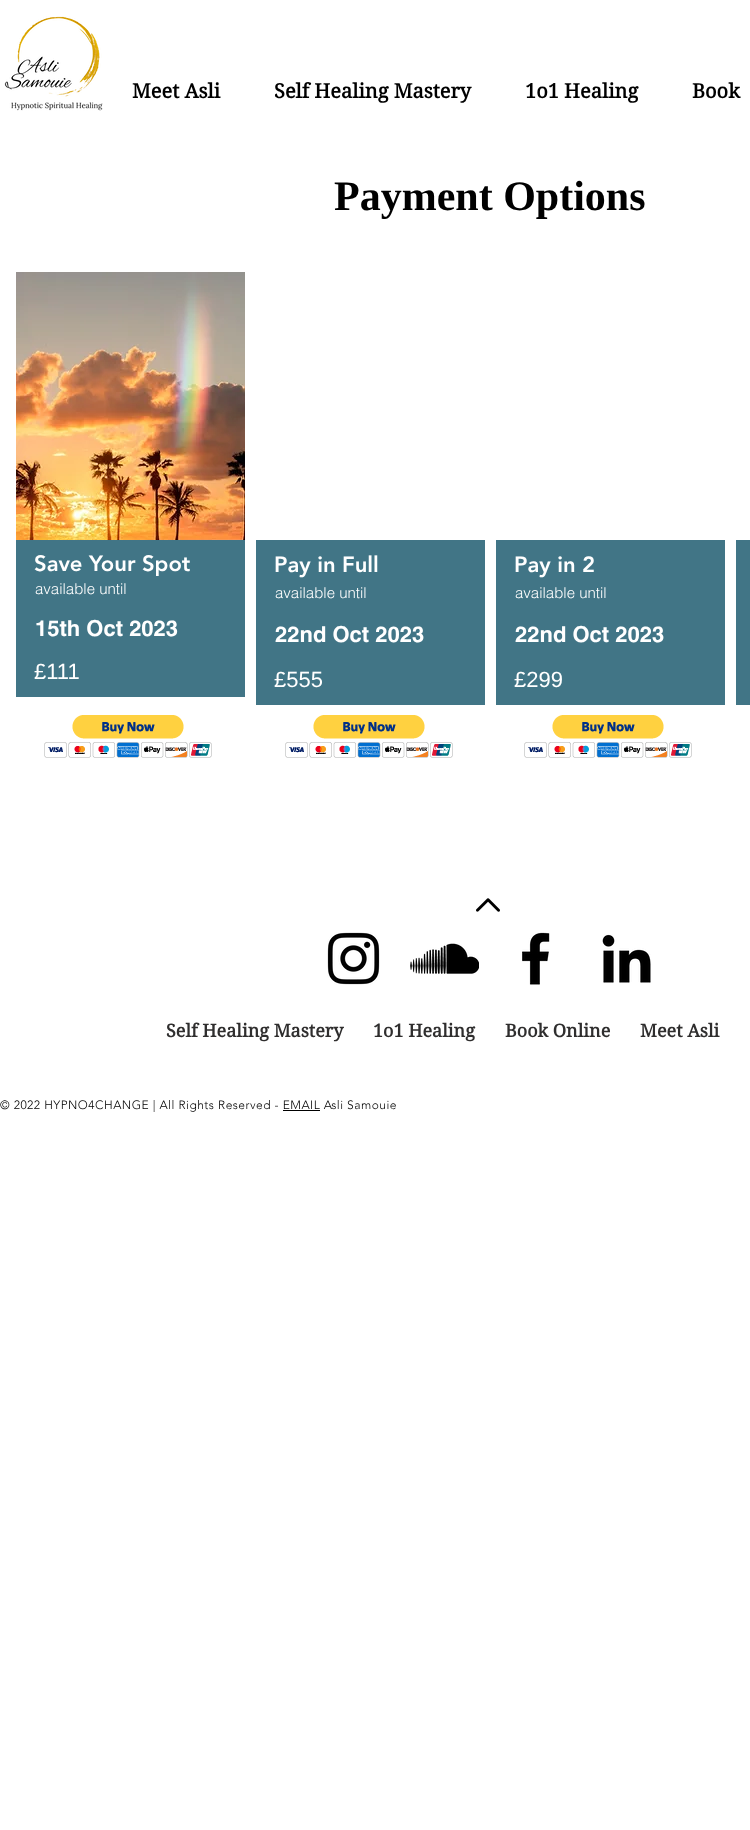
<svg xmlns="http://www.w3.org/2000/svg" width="750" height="1830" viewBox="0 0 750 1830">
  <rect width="100%" height="100%" fill="#fff"/>
  <image x="4" y="16" width="99" height="95" href="img/1.png"/>
  <image x="16" y="272" width="229" height="268" href="img/2.png"/>
  <path d="M16 540h229v157H16z" fill="#417586"/>
  <path d="M256 540h229v165H256z" fill="#417586"/>
  <path d="M496 540h229v165H496z" fill="#417586"/>
  <path d="M736 540h14v165H736z" fill="#417586"/>
  <image x="44" y="715" width="168" height="43" href="img/3.png"/>
  <image x="285" y="715" width="168" height="43" href="img/3.png"/>
  <image x="524" y="715" width="168" height="43" href="img/3.png"/>
  <image x="476" y="898" width="24" height="14" href="img/4.png"/>
  <image x="327" y="932" width="53" height="53" href="img/5.png"/>
  <image x="410" y="943" width="69" height="31" href="img/6.png"/>
  <image x="522" y="932" width="28" height="53" href="img/7.png"/>
  <image x="602" y="934" width="49" height="49" href="img/8.png"/>
  <path d="M283 1110h37v1H283z" fill="#000"/>
  <g font-family="'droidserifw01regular'" font-size="20" font-weight="bold" fill="#000">
    <text x="132" y="98">Meet Asli</text>
    <text x="274" y="98">Self Healing Mastery</text>
    <text x="525" y="98">1o1 Healing</text>
    <text x="692" y="98">Book</text>
  </g>
  <text x="334" y="210" font-family="Liberation Serif" font-size="42" font-weight="bold" fill="#000">Payment Options</text>
  <text x="34" y="571" font-family="'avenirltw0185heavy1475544'" font-size="22" font-weight="900" fill="#fff">Save Your Spot</text>
  <text x="35" y="594" font-family="helvetica" font-size="15" font-weight="300" fill="#fff">available until</text>
  <text x="35" y="636" font-family="helvetica" font-size="22" font-weight="bold" fill="#fff">15th Oct 2023</text>
  <text x="34" y="679" font-family="Liberation Sans" font-size="22" fill="#fff">£111</text>
  <text x="274" y="572" font-family="'avenirltw0185heavy1475544'" font-size="22" font-weight="900" fill="#fff">Pay in Full</text>
  <text x="275" y="598" font-family="helvetica" font-size="15" font-weight="300" fill="#fff">available until</text>
  <text x="275" y="642" font-family="helvetica" font-size="22" font-weight="bold" fill="#fff">22nd Oct 2023</text>
  <text x="274" y="687" font-family="Liberation Sans" font-size="22" fill="#fff">£555</text>
  <text x="514" y="572" font-family="'avenirltw0185heavy1475544'" font-size="22" font-weight="900" fill="#fff">Pay in 2</text>
  <text x="515" y="598" font-family="helvetica" font-size="15" font-weight="300" fill="#fff">available until</text>
  <text x="515" y="642" font-family="helvetica" font-size="22" font-weight="bold" fill="#fff">22nd Oct 2023</text>
  <text x="514" y="687" font-family="Liberation Sans" font-size="22" fill="#fff">£299</text>
  <g font-family="'droidserifw01regular'" font-size="18" font-weight="bold" fill="#2f2e2e">
    <text x="166" y="1037">Self Healing Mastery</text>
    <text x="373" y="1037">1o1 Healing</text>
    <text x="505" y="1037">Book Online</text>
    <text x="640" y="1037">Meet Asli</text>
  </g>
  <text x="0" y="1109" font-family="'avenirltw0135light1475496'" font-size="12" font-weight="300" letter-spacing="0.48" fill="#000">© 2022 HYPNO4CHANGE | All Rights Reserved - EMAIL Asli Samouie</text>
</svg>
